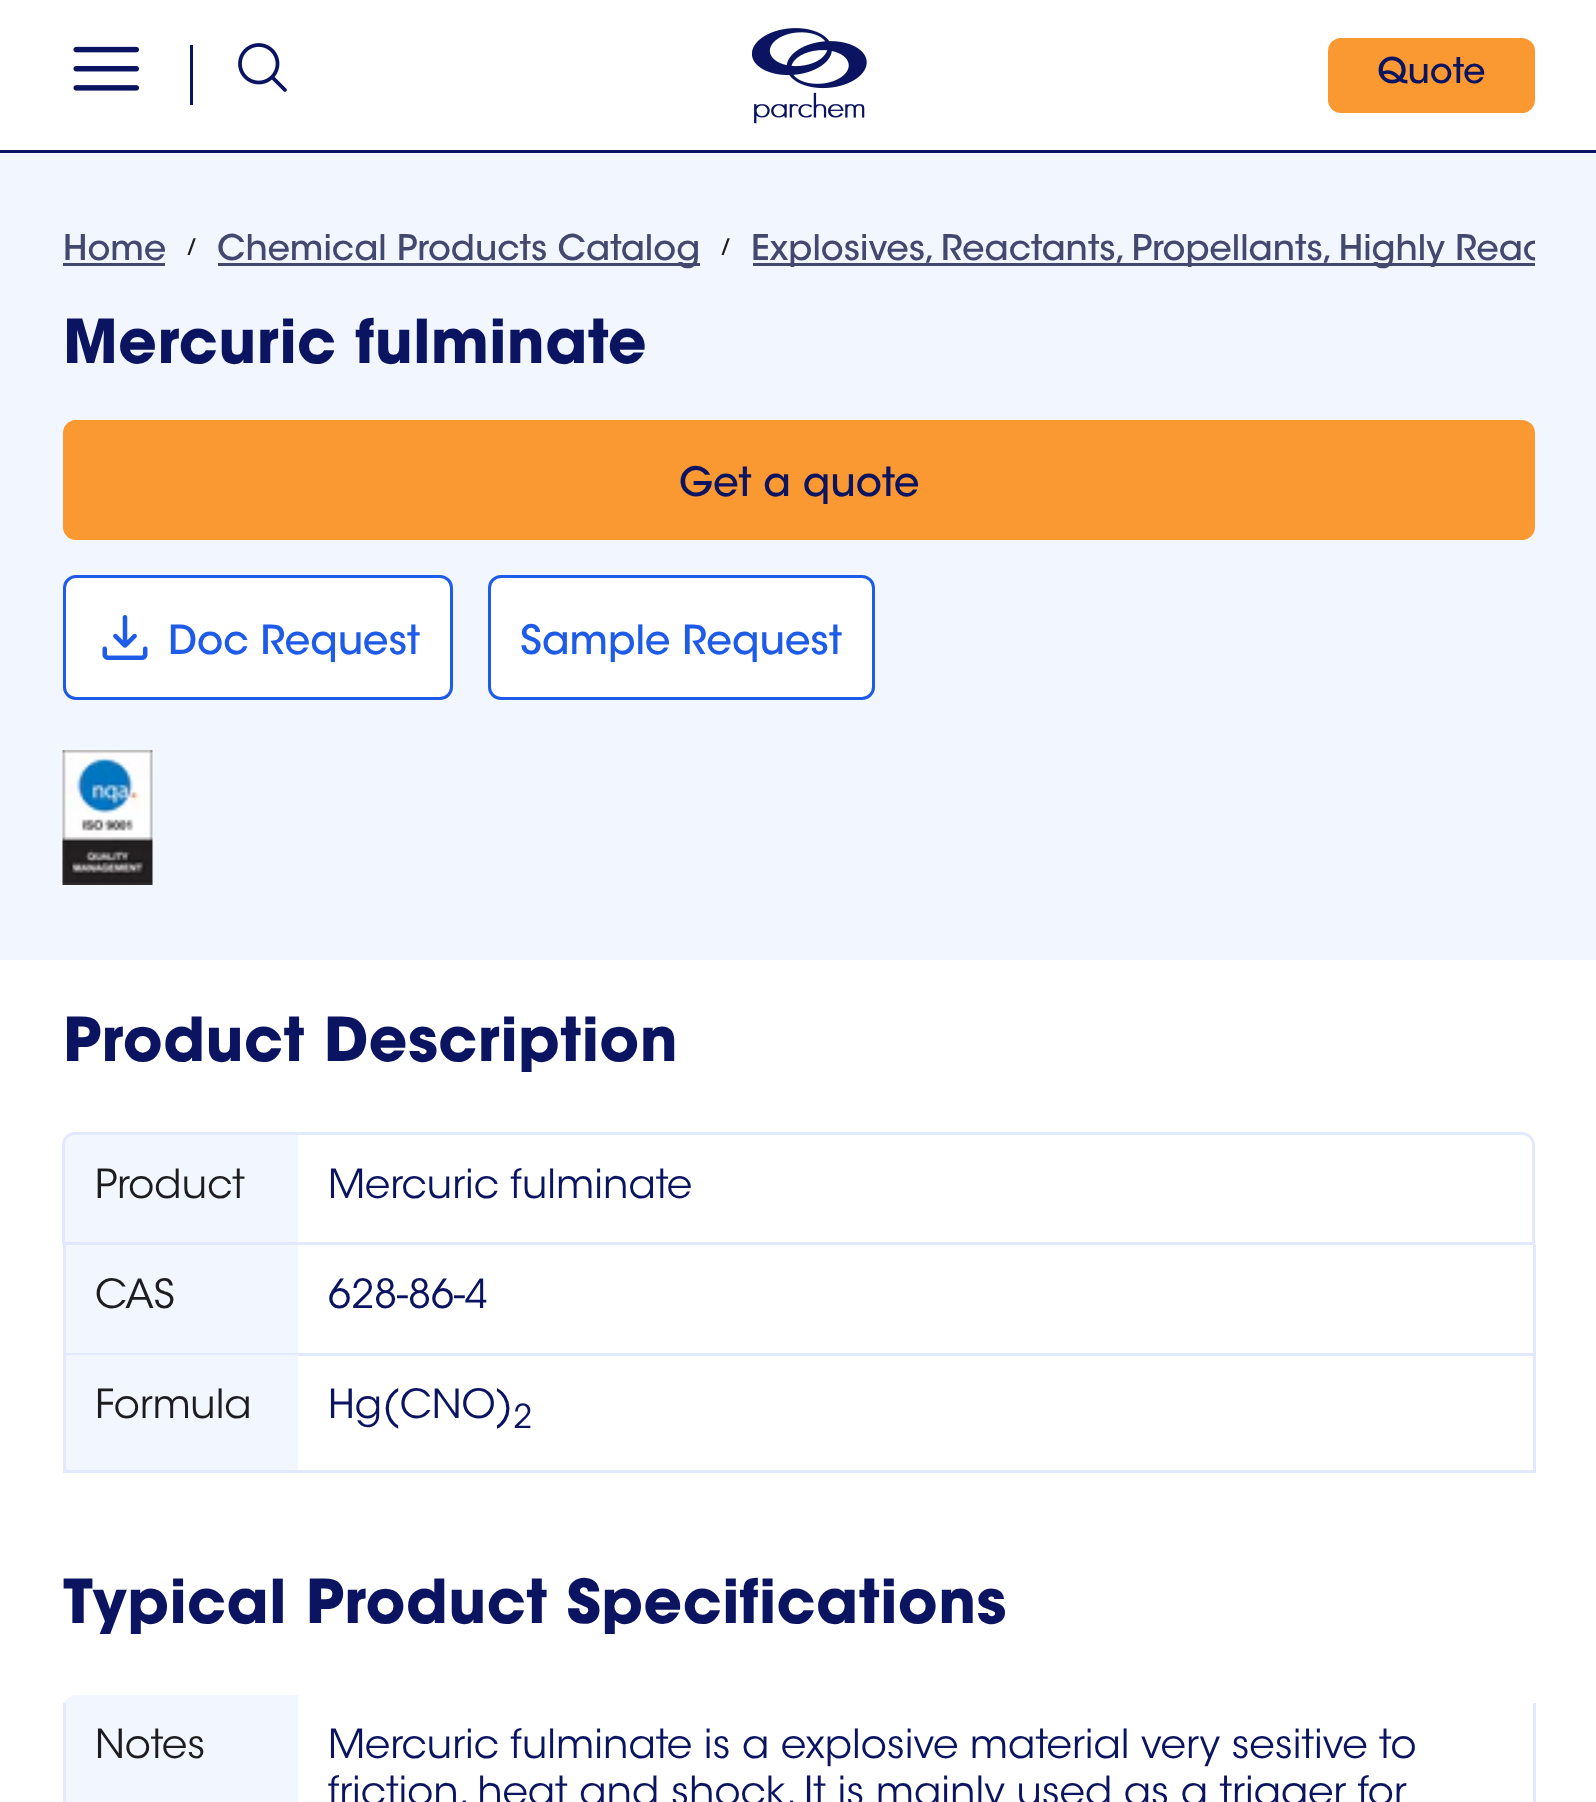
<svg xmlns="http://www.w3.org/2000/svg" width="1596" height="1802" viewBox="0 0 1596 1802">
  <defs>
    <clipPath id="clip1"><path d="M63 228h1472v47H63z"/></clipPath>
  </defs>
  <rect width="100%" height="100%" fill="#fff"/>
  <path d="M0 150h1596v3H0z" fill="#0b1460"/>
  <image x="73" y="46" width="66" height="45" href="img/1.png"/>
  <path d="M190 45h3v60H190z" fill="#0b1460"/>
  <image x="238" y="43" width="49" height="49" href="img/2.png"/>
  <image x="752" y="28" width="115" height="96" href="img/3.png"/>
  <rect x="1328" y="38" width="207" height="75" rx="13" fill="#fa9832"/>
  <path d="M0 153h1596v807H0z" fill="#f2f6ff"/>
  <path d="M63 263h102v3H63z" fill="#43486f"/>
  <path d="M218 263h482v3H218z" fill="#43486f"/>
  <path d="M753 263h782v3H753z" fill="#43486f"/>
  <rect x="63" y="420" width="1472" height="120" rx="13" fill="#fa9832"/>
  <rect x="64.5" y="576.5" width="387" height="122" rx="11.5" fill="#fff" stroke="#1d5be8" stroke-width="3"/>
  <image x="102" y="615" width="46" height="45" href="img/4.png"/>
  <rect x="489.5" y="576.5" width="384" height="122" rx="11.5" fill="#fff" stroke="#1d5be8" stroke-width="3"/>
  <image x="62" y="750" width="91" height="135" href="img/5.png"/>
  <path d="M76 1133H298V1245H63V1146C63 1139 69 1133 76 1133Z" fill="#f2f6ff"/>
  <path d="M75 1132H298V1245H62V1145C62 1138 68 1132 75 1132ZM75 1135H298V1242H65V1145C65 1139 69 1135 75 1135Z" fill="#e2e8fd" fill-rule="evenodd"/>
  <path d="M298 1132H1522C1529 1132 1535 1138 1535 1145V1245H298ZM298 1135H1522C1528 1135 1532 1139 1532 1145V1242H298Z" fill="#e2e8fd" fill-rule="evenodd"/>
  <path d="M66 1245h232v108H66z" fill="#f2f6ff"/>
  <path d="M63 1353h235v2H63z" fill="#e2e8fd"/>
  <path d="M63 1245h3v110H63z" fill="#e2e8fd"/>
  <path d="M1533 1245h3v110H1533z" fill="#e2e8fd"/>
  <path d="M298 1353h1237v3H298z" fill="#e2e8fd"/>
  <path d="M66 1355h232v115H66z" fill="#f2f6ff"/>
  <path d="M63 1470h235v3H63z" fill="#e2e8fd"/>
  <path d="M63 1355h3v118H63z" fill="#e2e8fd"/>
  <path d="M1533 1355h3v118H1533z" fill="#e2e8fd"/>
  <path d="M298 1470h1237v3H298z" fill="#e2e8fd"/>
  <path d="M76 1695H298V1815H63V1708C63 1701 69 1695 76 1695Z" fill="#f2f6ff"/>
  <path d="M63 1703h3v99H63z" fill="#e2e8fd"/>
  <path d="M1533 1703h3v99H1533z" fill="#e2e8fd"/>
  <text x="1377" y="83" font-family="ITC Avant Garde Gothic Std" font-size="35" font-weight="500" fill="#0b1460">Quote</text>
  <text x="63" y="260" font-family="ITC Avant Garde Gothic Std" font-size="35" font-weight="500" fill="#43486f">Home</text>
  <text x="186" y="253" font-family="ITC Avant Garde Gothic Std" font-size="20" font-weight="500" fill="#1d1d1f">/</text>
  <text x="217" y="260" font-family="ITC Avant Garde Gothic Std" font-size="35" font-weight="500" fill="#43486f">Chemical Products Catalog</text>
  <text x="720" y="253" font-family="ITC Avant Garde Gothic Std" font-size="20" font-weight="500" fill="#1d1d1f">/</text>
  <g clip-path="url(#clip1)">
    <text x="751" y="260" font-family="ITC Avant Garde Gothic Std" font-size="35" font-weight="500" fill="#43486f">Explosives, Reactants, Propellants, Highly Reac</text>
  </g>
  <text x="63" y="363" font-family="ITC Avant Garde Gothic Std" font-size="60" font-weight="bold" letter-spacing="0.4" fill="#0b1460">Mercuric fulminate</text>
  <text x="679" y="496" font-family="ITC Avant Garde Gothic Std" font-size="40" font-weight="500" fill="#0b1460">Get a quote</text>
  <g font-family="ITC Avant Garde Gothic Std" font-size="40" font-weight="500" fill="#1d5be8">
    <text x="168" y="654">Doc Request</text>
    <text x="520" y="654">Sample Request</text>
  </g>
  <text x="63" y="1061" font-family="ITC Avant Garde Gothic Std" font-size="60" font-weight="bold" letter-spacing="0.4" fill="#0b1460">Product Description</text>
  <text x="95" y="1198" font-family="ITC Avant Garde Gothic Std" font-size="40" font-weight="300" fill="#1d1d1f">Product</text>
  <text x="328" y="1198" font-family="ITC Avant Garde Gothic Std" font-size="40" font-weight="300" fill="#0b1460">Mercuric fulminate</text>
  <text x="95" y="1308" font-family="ITC Avant Garde Gothic Std" font-size="40" font-weight="300" fill="#1d1d1f">CAS</text>
  <text x="328" y="1308" font-family="ITC Avant Garde Gothic Std" font-size="40" font-weight="300" fill="#0b1460">628-86-4</text>
  <text x="95" y="1418" font-family="ITC Avant Garde Gothic Std" font-size="40" font-weight="300" fill="#1d1d1f">Formula</text>
  <text x="328" y="1418" font-family="ITC Avant Garde Gothic Std" font-size="40" font-weight="300" fill="#0b1460">Hg(CNO)</text>
  <text x="513" y="1428" font-family="ITC Avant Garde Gothic Std" font-size="33" font-weight="300" fill="#0b1460">2</text>
  <text x="63" y="1623" font-family="ITC Avant Garde Gothic Std" font-size="60" font-weight="bold" letter-spacing="0.4" fill="#0b1460">Typical Product Specifications</text>
  <text x="95" y="1758" font-family="ITC Avant Garde Gothic Std" font-size="40" font-weight="300" fill="#1d1d1f">Notes</text>
  <g font-family="ITC Avant Garde Gothic Std" font-size="40" font-weight="300" fill="#0b1460">
    <text x="328" y="1758">Mercuric fulminate is a explosive material very sesitive to</text>
    <text x="328" y="1805">friction, heat and shock. It is mainly used as a trigger for</text>
  </g>
</svg>
